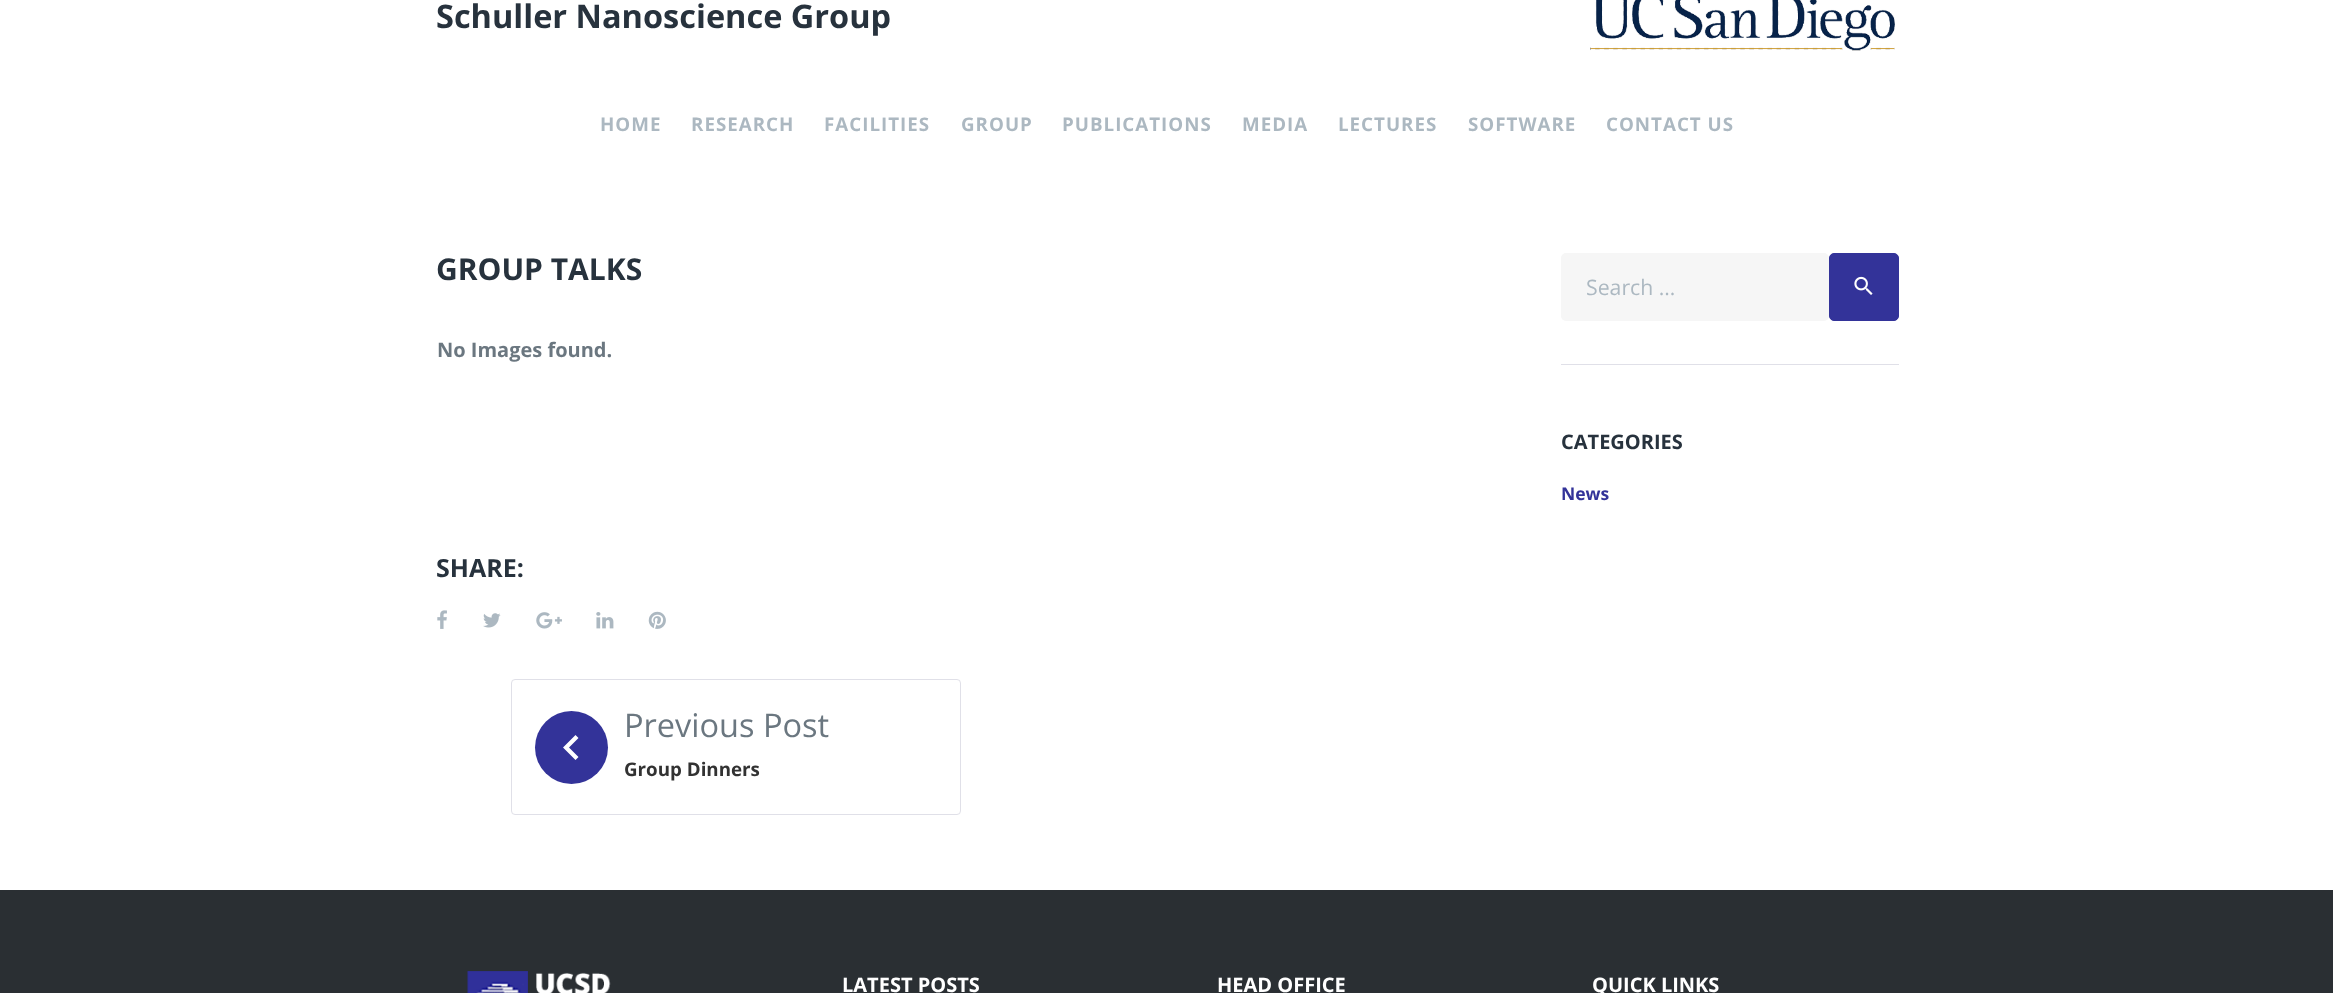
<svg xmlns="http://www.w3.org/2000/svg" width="2333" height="993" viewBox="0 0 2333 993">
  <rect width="100%" height="100%" fill="#fff"/>
  <image x="1590" y="0" width="305" height="51" href="img/1.png"/>
  <image x="437" y="610" width="10" height="19" href="img/2.png"/>
  <image x="483" y="613" width="18" height="15" href="img/3.png"/>
  <image x="536" y="612" width="26" height="17" href="img/4.png"/>
  <image x="596" y="612" width="18" height="17" href="img/5.png"/>
  <image x="648" y="611" width="18" height="18" href="img/6.png"/>
  <rect x="511.5" y="679.5" width="449" height="135" rx="3.5" fill="none" stroke="#e0e0e8"/>
  <circle cx="571.5" cy="747.5" r="36.5" fill="#339"/>
  <path d="M578.5 738L569 747.5L578.5 757L575.5 760L563 747.5L575.5 735Z" fill="#fff"/>
  <rect x="1561" y="253" width="268" height="68" rx="5" fill="#f6f6f6"/>
  <rect x="1829.5" y="253.5" width="69" height="67" rx="4.5" fill="#339" stroke="#339"/>
  <image x="1854" y="276" width="19" height="19" href="img/7.png"/>
  <path d="M1561 364h338v1H1561z" fill="#e0e0e8"/>
  <path d="M0 890h2333v103H0z" fill="#2a2f33"/>
  <image x="467" y="971" width="144" height="22" href="img/8.png"/>
  <text x="436" y="28" font-family="Open Sans" font-size="32.5" font-weight="bold" fill="#27323d">Schuller Nanoscience Group</text>
  <g font-family="Open Sans" font-size="18.75" font-weight="bold" letter-spacing="1" fill="#acb8c1">
    <text x="600" y="131">HOME</text>
    <text x="691" y="131">RESEARCH</text>
    <text x="824" y="131">FACILITIES</text>
    <text x="961" y="131">GROUP</text>
    <text x="1062" y="131">PUBLICATIONS</text>
    <text x="1242" y="131">MEDIA</text>
    <text x="1338" y="131">LECTURES</text>
    <text x="1468" y="131">SOFTWARE</text>
    <text x="1606" y="131">CONTACT US</text>
  </g>
  <text x="436" y="280" font-family="Open Sans" font-size="30" font-weight="bold" fill="#27323d">GROUP TALKS</text>
  <text x="437" y="357" font-family="Open Sans" font-size="20" font-weight="bold" fill="#6b7780">No Images found.</text>
  <text x="436" y="577" font-family="Open Sans" font-size="25" font-weight="bold" fill="#27323d">SHARE:</text>
  <text x="624" y="737" font-family="Open Sans" font-size="32.5" fill="#6b7780">Previous Post</text>
  <text x="624" y="776" font-family="Open Sans" font-size="18.75" font-weight="bold" fill="#323232">Group Dinners</text>
  <text x="1586" y="295" font-family="Open Sans" font-size="21.25" fill="#acb8c1">Search …</text>
  <text x="1561" y="449" font-family="Open Sans" font-size="20" font-weight="bold" fill="#27323d">CATEGORIES</text>
  <text x="1561" y="500" font-family="Open Sans" font-size="17.5" font-weight="bold" fill="#339">News</text>
  <g font-family="Open Sans" font-size="20" font-weight="bold" fill="#fff">
    <text x="842" y="992">LATEST POSTS</text>
    <text x="1217" y="992">HEAD OFFICE</text>
    <text x="1592" y="992">QUICK LINKS</text>
  </g>
</svg>
